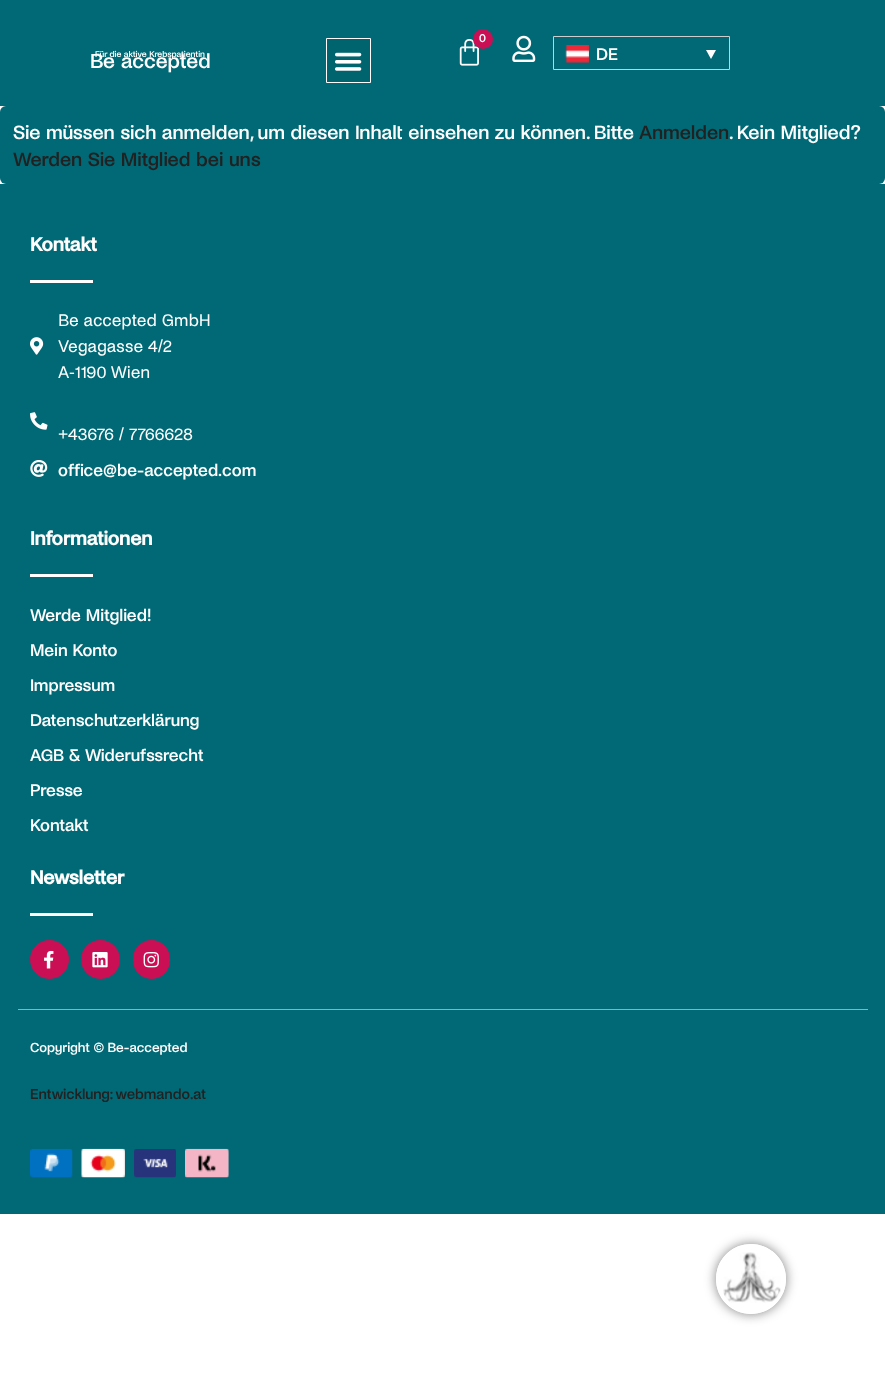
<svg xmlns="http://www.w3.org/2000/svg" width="885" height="1381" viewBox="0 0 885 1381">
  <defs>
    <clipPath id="clip1"><path d="M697 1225H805V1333H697ZM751 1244C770.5 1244 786 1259.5 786 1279C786 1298.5 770.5 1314 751 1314C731.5 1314 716 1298.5 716 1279C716 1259.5 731.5 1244 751 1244Z" clip-rule="evenodd"/></clipPath>
  </defs>
  <rect width="100%" height="100%" fill="#fff"/>
  <path d="M0 0h885v106H0z" fill="#006975"/>
  <path d="M326.5 38.5h44v44H326.5z" fill="#00646f" stroke="#fff"/>
  <image x="335" y="52" width="27" height="19" href="img/1.png"/>
  <image x="459" y="39" width="20" height="27" href="img/2.png"/>
  <circle cx="483" cy="39" r="10" fill="#ca0f54"/>
  <image x="512" y="35" width="24" height="27" href="img/3.png"/>
  <path d="M553.5 36.5h176v33H553.5z" fill="none" stroke="#cdcdcd"/>
  <image x="565" y="45" width="24" height="18" href="img/4.png"/>
  <path d="M706 50H716L711 59Z" fill="#fff"/>
  <rect y="106" width="885" height="78" rx="6" fill="#006975"/>
  <path d="M0 184h885v1030H0z" fill="#006975"/>
  <path d="M18 1009h850v1H18z" fill="#9caf9f"/>
  <path d="M30 280h63v3H30z" fill="#fff"/>
  <image x="30" y="337" width="14" height="18" href="img/5.png"/>
  <image x="30" y="412" width="18" height="18" href="img/6.png"/>
  <image x="30" y="460" width="18" height="17" href="img/7.png"/>
  <path d="M30 574h63v3H30z" fill="#fff"/>
  <path d="M30 913h63v3H30z" fill="#fff"/>
  <circle cx="49.5" cy="959.5" r="19.5" fill="#ca0f54"/>
  <image x="44" y="950" width="10" height="19" href="img/8.png"/>
  <circle cx="100.5" cy="959.5" r="19.5" fill="#ca0f54"/>
  <image x="92" y="952" width="16" height="16" href="img/9.png"/>
  <rect x="133" y="940" width="37" height="39" rx="18.5" fill="#ca0f54"/>
  <image x="143" y="952" width="16" height="16" href="img/10.png"/>
  <g clip-path="url(#clip1)">
    <rect x="716" y="1244" width="70" height="70" rx="35" fill="#00000080" filter="blur(6px)"/>
  </g>
  <circle cx="751" cy="1279" r="33" fill="none" stroke="#fff" stroke-width="4"/>
  <image x="723" y="1252" width="58" height="51" href="img/11.png"/>
  <image x="30" y="1148" width="43" height="30" href="img/12.png"/>
  <image x="81" y="1148" width="44" height="30" href="img/13.png"/>
  <image x="134" y="1149" width="42" height="29" href="img/14.png"/>
  <image x="185" y="1148" width="44" height="30" href="img/15.png"/>
  <text x="90" y="68" font-family="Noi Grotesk" font-size="21.25" font-weight="500" fill="#fff">Be accepted</text>
  <text x="95" y="57" font-family="Noi Grotesk" font-size="8.75" font-weight="500" fill="#fff">Für die aktive Krebspatientin</text>
  <text x="479" y="42" font-family="Noi Grotesk" font-size="12" font-weight="500" fill="#fff">0</text>
  <text x="596" y="60" font-family="Noi Grotesk" font-size="17.5" font-weight="500" fill="#fff">DE</text>
  <text x="13" y="139" font-family="Noi Grotesk" font-size="20" font-weight="500" fill="#fff">Sie müssen sich anmelden, um diesen Inhalt einsehen zu können. Bitte</text>
  <text x="639" y="139" font-family="Noi Grotesk" font-size="20" font-weight="500" fill="#212121">Anmelden</text>
  <text x="729" y="139" font-family="Noi Grotesk" font-size="20" font-weight="500" fill="#fff">. Kein Mitglied?</text>
  <text x="13" y="166" font-family="Noi Grotesk" font-size="20" font-weight="500" fill="#212121">Werden Sie Mitglied bei uns</text>
  <text x="30" y="251" font-family="Noi Grotesk" font-size="20" font-weight="bold" fill="#fff">Kontakt</text>
  <g font-family="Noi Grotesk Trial" font-size="17.5" fill="#fff">
    <text x="58" y="326">Be accepted GmbH</text>
    <text x="58" y="352">Vegagasse 4 2</text>
  </g>
  <text x="158" y="352" font-family="Liberation Sans" font-size="17.5" fill="#fff">/</text>
  <text x="58" y="378" font-family="Noi Grotesk Trial" font-size="17.5" fill="#fff">A</text>
  <text x="69" y="378" font-family="Liberation Sans" font-size="17.5" fill="#fff">-</text>
  <text x="75" y="378" font-family="Noi Grotesk Trial" font-size="17.5" fill="#fff">1190 Wien</text>
  <text x="58" y="440" font-family="Liberation Sans" font-size="17.5" fill="#fff">+</text>
  <text x="68" y="440" font-family="Noi Grotesk Trial" font-size="17.5" fill="#fff">43676</text>
  <text x="119" y="440" font-family="Liberation Sans" font-size="17.5" fill="#fff">/</text>
  <text x="129" y="440" font-family="Noi Grotesk Trial" font-size="17.5" fill="#fff">7766628</text>
  <text x="58" y="476" font-family="Noi Grotesk" font-size="17.5" font-weight="500" fill="#fff">office@be-accepted.com</text>
  <text x="30" y="545" font-family="Noi Grotesk" font-size="20" font-weight="bold" fill="#fff">Informationen</text>
  <g font-family="Noi Grotesk" font-size="17.5" font-weight="500" fill="#fff">
    <text x="30" y="621">Werde Mitglied!</text>
    <text x="30" y="656">Mein Konto</text>
    <text x="30" y="691">Impressum</text>
    <text x="30" y="726">Datenschutzerklärung</text>
    <text x="30" y="761">AGB &amp; Widerufssrecht</text>
    <text x="30" y="796">Presse</text>
    <text x="30" y="831">Kontakt</text>
  </g>
  <text x="30" y="884" font-family="Noi Grotesk" font-size="20" font-weight="bold" fill="#fff">Newsletter</text>
  <text x="30" y="1052" font-family="Noi Grotesk" font-size="13.75" font-weight="500" fill="#fff">Copyright © Be-accepted</text>
  <text x="30" y="1099" font-family="Noi Grotesk" font-size="15" font-weight="500" fill="#212121">Entwicklung: webmando.at</text>
</svg>
